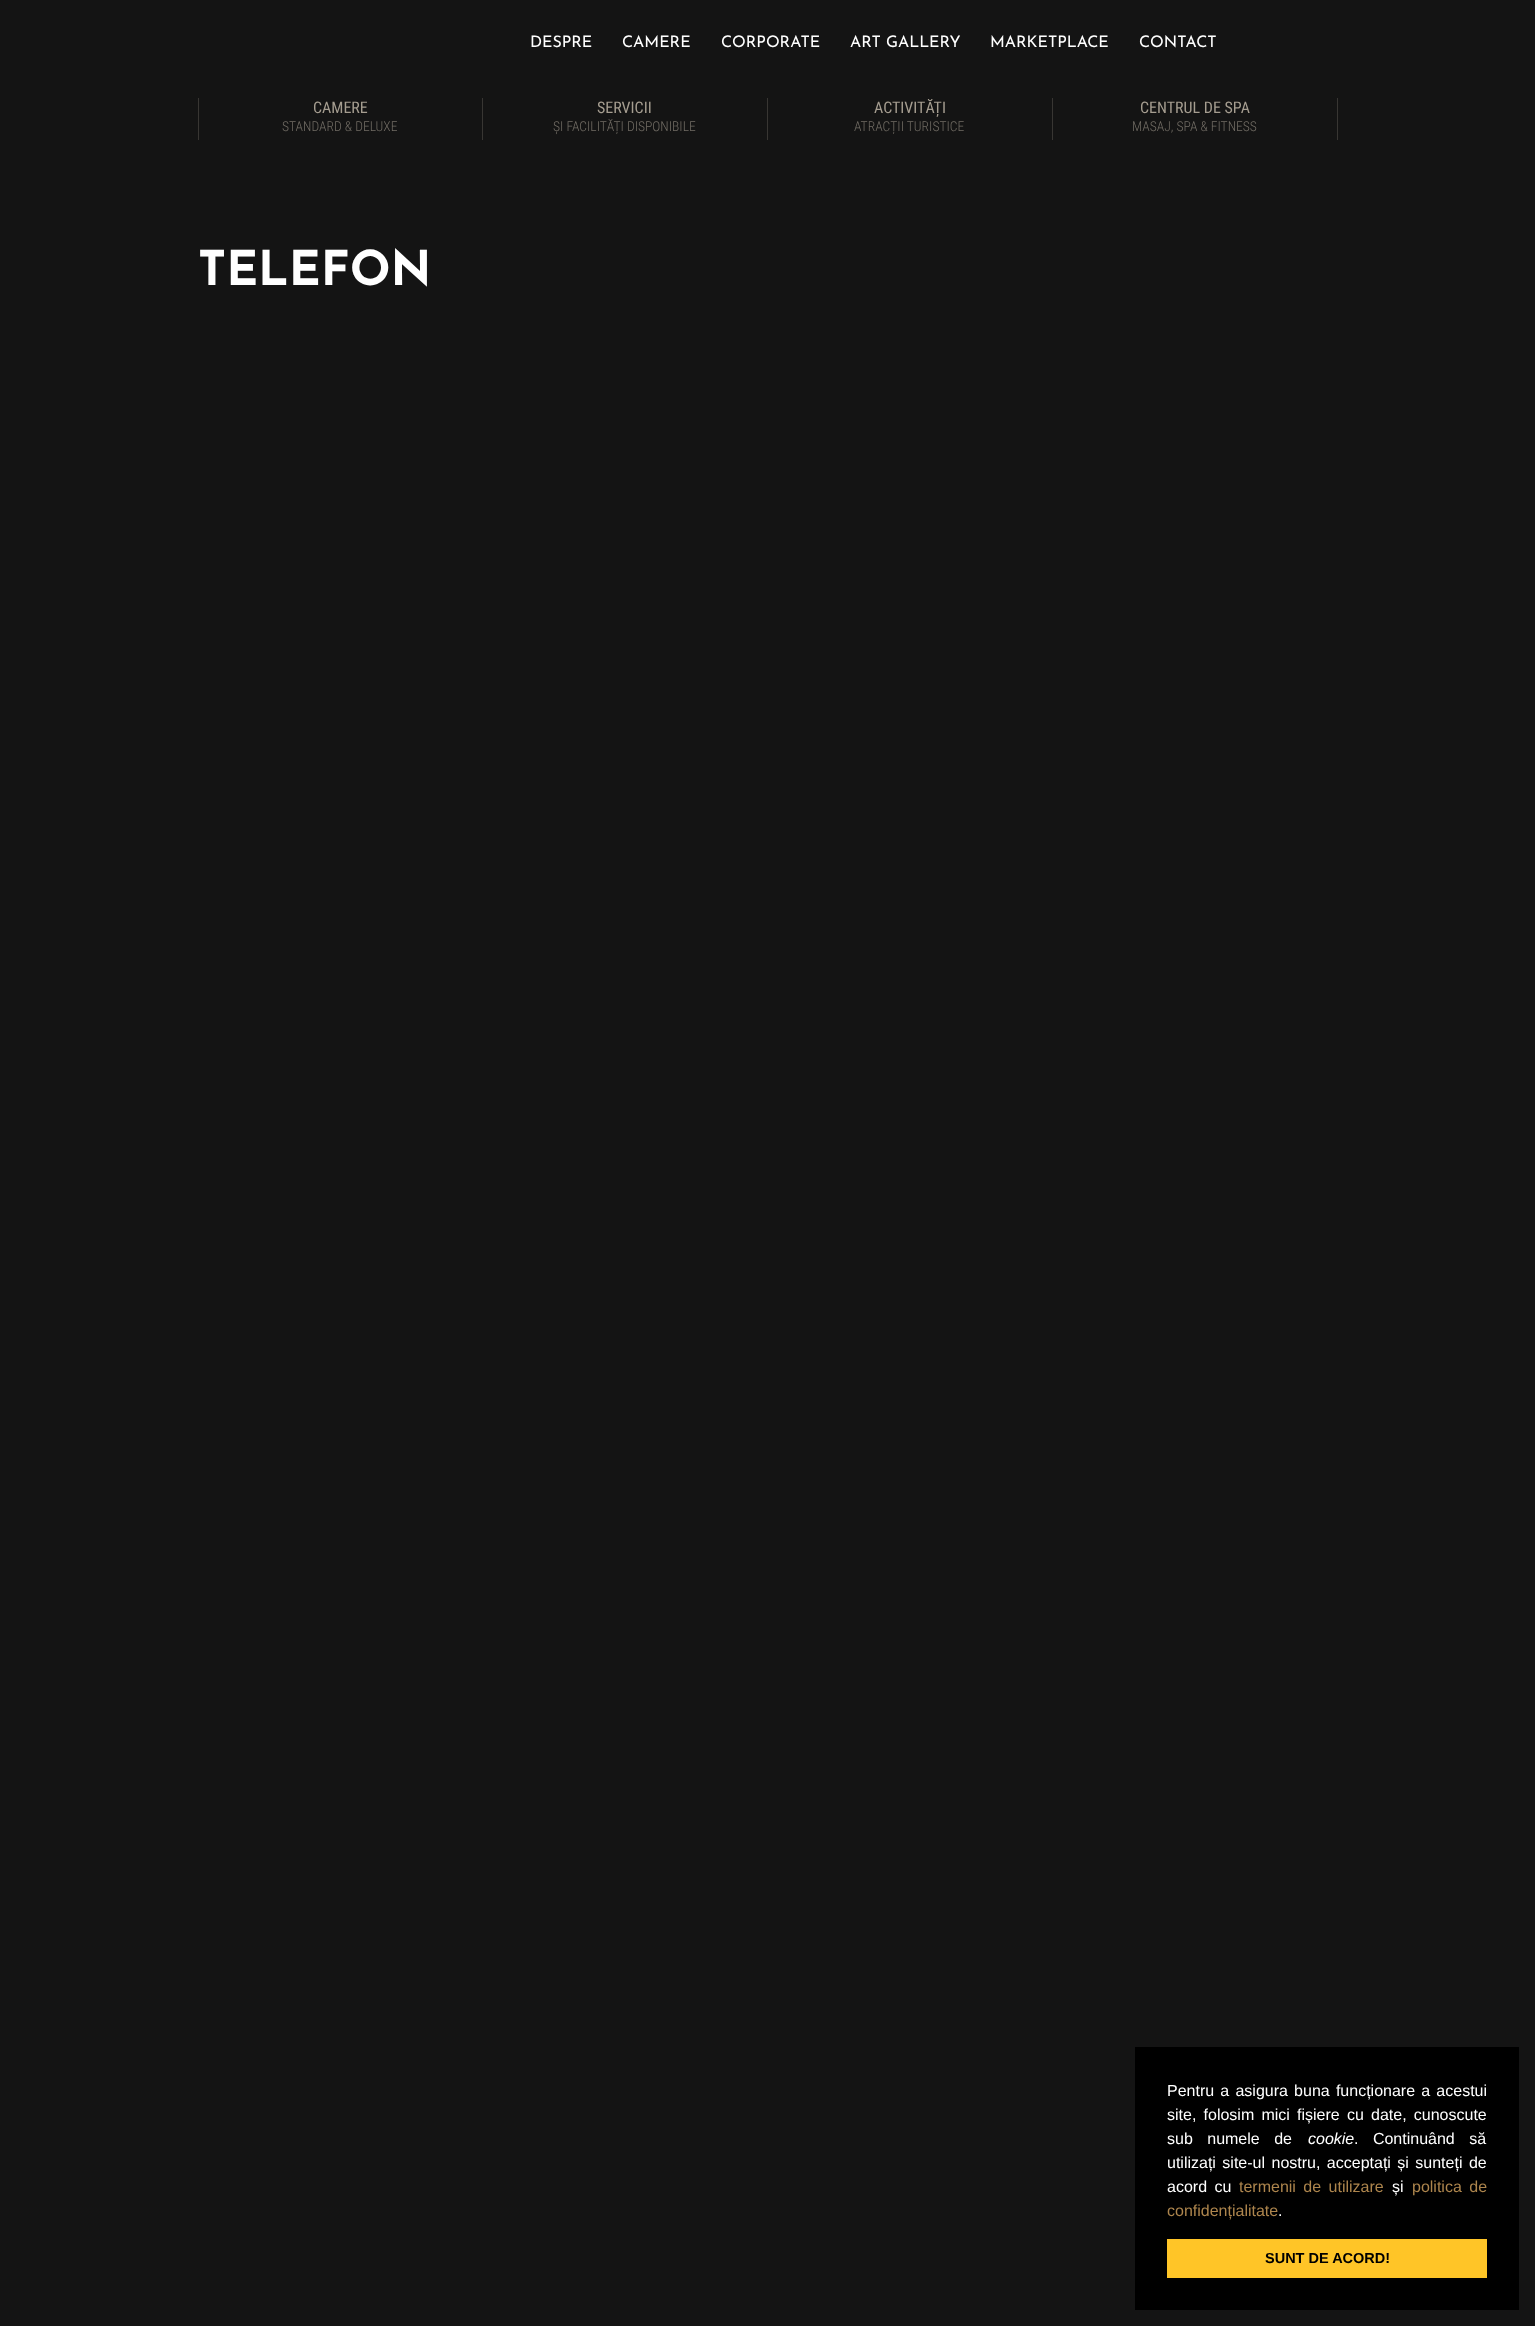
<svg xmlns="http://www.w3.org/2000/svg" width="1535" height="2326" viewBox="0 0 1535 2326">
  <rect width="100%" height="100%" fill="#141414"/>
  <path d="M482 98h1v42H482z" fill="#383633"/>
  <path d="M198 98h1v42H198z" fill="#383633"/>
  <path d="M767 98h1v42H767z" fill="#383633"/>
  <path d="M1052 98h1v42H1052z" fill="#383633"/>
  <path d="M1337 98h1v42H1337z" fill="#383633"/>
  <path d="M1135 2047h384v263H1135z" fill="#000"/>
  <path d="M1167 2239h320v39H1167z" fill="#ffc527"/>
  <g font-family="Josefin Sans" font-size="16" fill="#fff">
    <text x="530" y="47">DESPRE</text>
    <text x="622" y="47">CAMERE</text>
    <text x="721" y="47">CORPORATE</text>
    <text x="850" y="47">ART GALLERY</text>
    <text x="990" y="47">MARKETPLACE</text>
    <text x="1139" y="47">CONTACT</text>
  </g>
  <text x="313" y="113" font-family="Roboto Condensed" font-size="16" fill="#a59d90">CAMERE</text>
  <text x="282" y="131" font-family="Roboto Condensed" font-size="13.6" font-weight="300" fill="#726d65">STANDARD &amp; DELUXE</text>
  <text x="597" y="113" font-family="Roboto Condensed" font-size="16" fill="#a59d90">SERVICII</text>
  <text x="553" y="131" font-family="Roboto Condensed" font-size="13.6" font-weight="300" fill="#726d65">ȘI FACILITĂȚI DISPONIBILE</text>
  <text x="874" y="113" font-family="Roboto Condensed" font-size="16" fill="#a59d90">ACTIVITĂȚI</text>
  <text x="854" y="131" font-family="Roboto Condensed" font-size="13.6" font-weight="300" fill="#726d65">ATRACȚII TURISTICE</text>
  <text x="1140" y="113" font-family="Roboto Condensed" font-size="16" fill="#a59d90">CENTRUL DE SPA</text>
  <text x="1132" y="131" font-family="Roboto Condensed" font-size="13.6" font-weight="300" fill="#726d65">MASAJ, SPA &amp; FITNESS</text>
  <text x="198" y="285" font-family="Josefin Sans" font-size="48" font-weight="bold" fill="#fff">TELEFON</text>
  <g font-family="Liberation Sans" font-size="16" fill="#fff">
    <text x="1167" y="2096" word-spacing="1.75">Pentru a asigura buna funcționare a acestui</text>
    <text x="1167" y="2120" word-spacing="2.75">site, folosim mici fișiere cu date, cunoscute</text>
    <text x="1167" y="2144" word-spacing="10">sub numele de</text>
  </g>
  <text x="1308" y="2144" font-family="Liberation Sans" font-size="16" font-style="italic" fill="#fff">cookie</text>
  <g font-family="Liberation Sans" font-size="16" fill="#fff">
    <text x="1354" y="2144" word-spacing="10">. Continuând să</text>
    <text x="1167" y="2168" word-spacing="2">utilizați site-ul nostru, acceptați și sunteți de</text>
    <text x="1167" y="2192" word-spacing="3">acord cu</text>
  </g>
  <text x="1239" y="2192" word-spacing="3" font-family="Liberation Sans" font-size="16" fill="#ad854d">termenii de utilizare</text>
  <text x="1392" y="2192" font-family="Liberation Sans" font-size="16" fill="#fff">și</text>
  <g font-family="Liberation Sans" font-size="16" fill="#ad854d">
    <text x="1412" y="2192" word-spacing="3">politica de</text>
    <text x="1167" y="2216">confidențialitate</text>
  </g>
  <text x="1278" y="2216" font-family="Liberation Sans" font-size="16" fill="#fff">.</text>
  <text x="1265" y="2263" font-family="Liberation Sans" font-size="14.5" font-weight="bold" fill="#000">SUNT DE ACORD!</text>
</svg>
